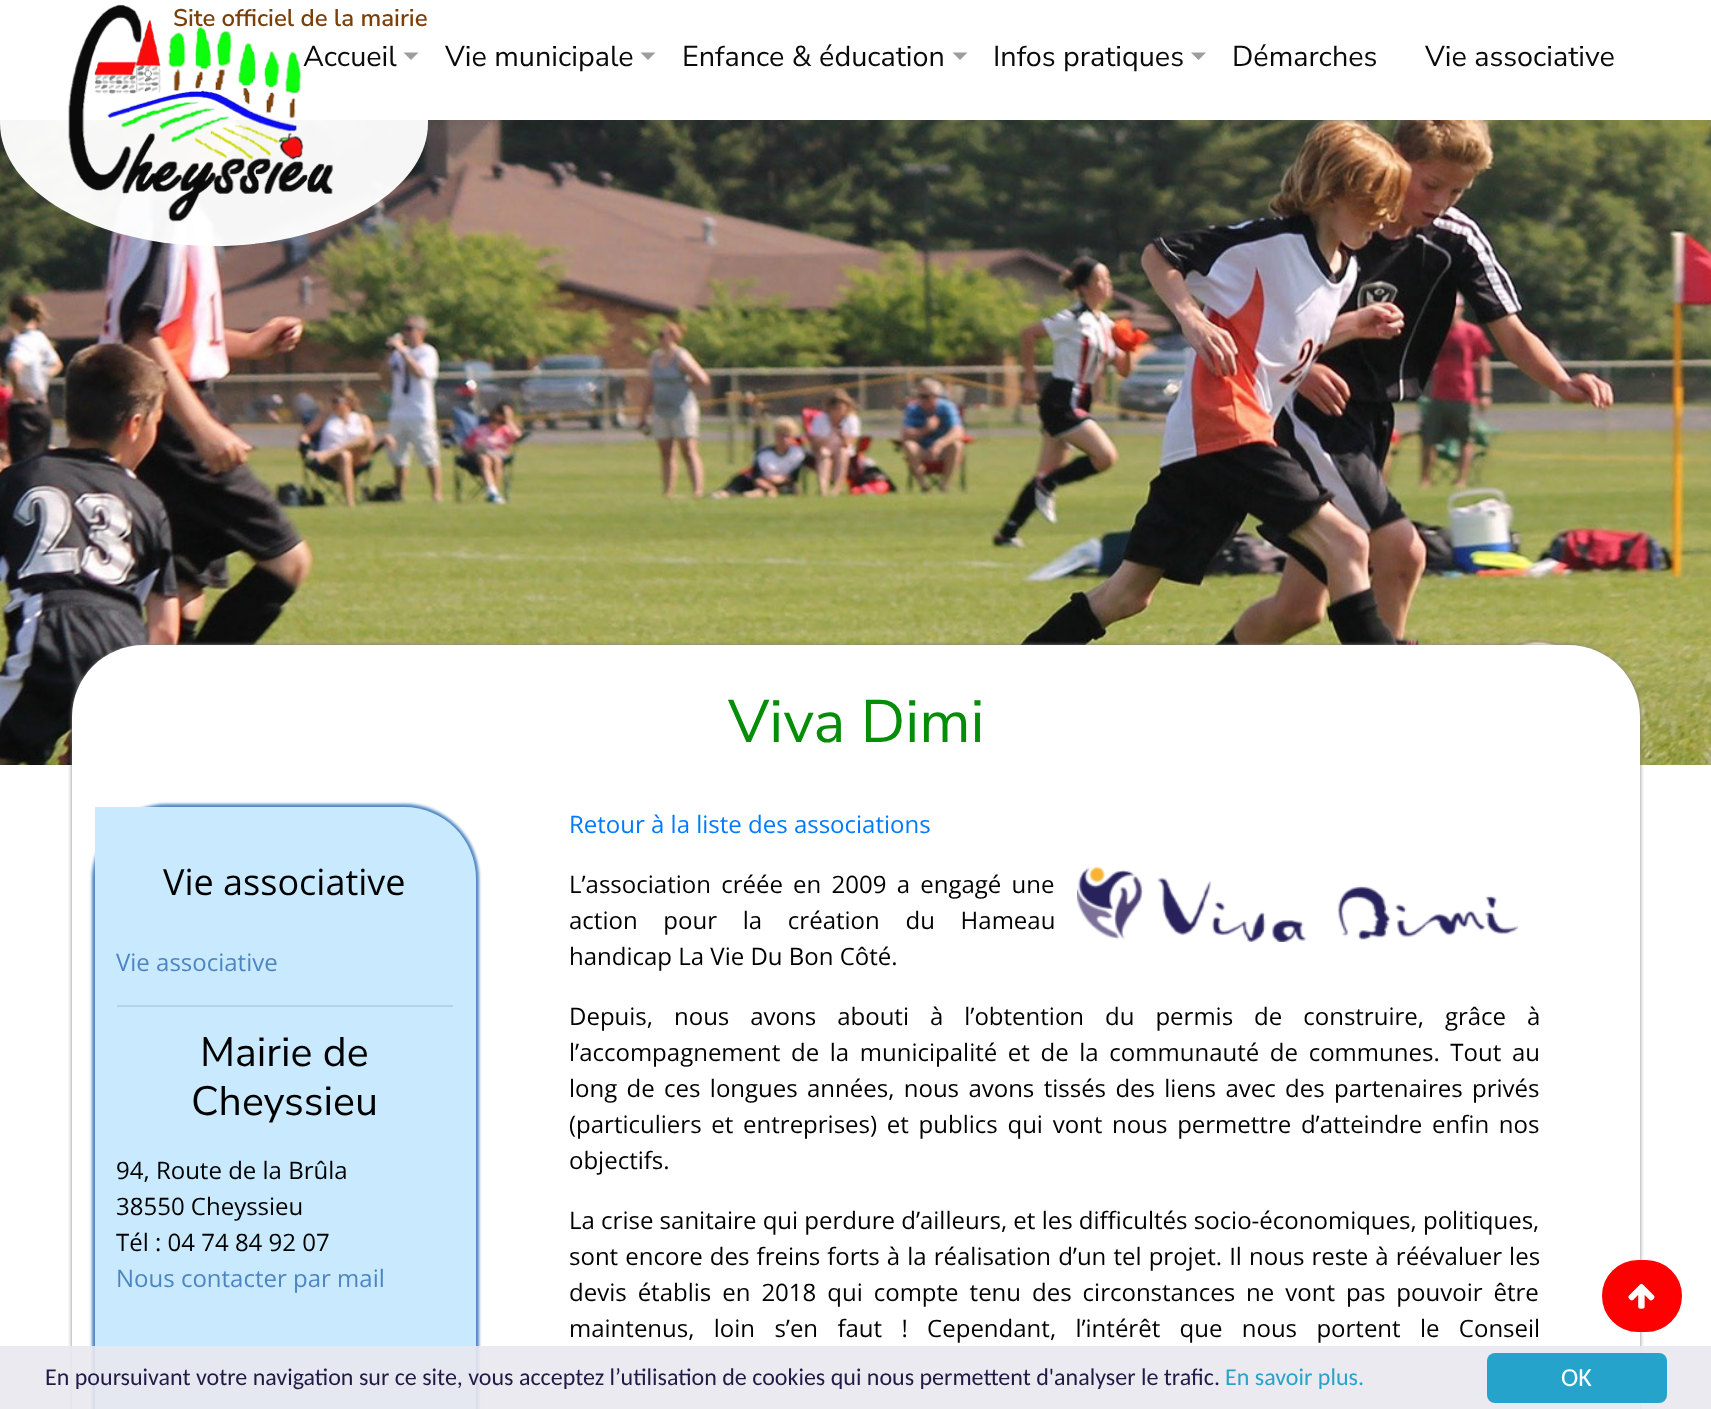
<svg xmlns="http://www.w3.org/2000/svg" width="1711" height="1409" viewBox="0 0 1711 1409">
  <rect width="100%" height="100%" fill="#fff"/>
  <image x="0" y="120" width="1711" height="645" href="img/2.png"/>
  <path d="M0 0H428V123C428 191 332 246 214 246C96 246 0 191 0 123Z" fill="#fffffff5"/>
  <image x="68" y="4" width="266" height="218" href="img/1.png"/>
  <path d="M403.5 52.5H418.5L411 60Z" fill="#9d9d9d"/>
  <path d="M640.5 52.5H655.5L648 60Z" fill="#9d9d9d"/>
  <path d="M952.5 52.5H967.5L960 60Z" fill="#9d9d9d"/>
  <path d="M1191 52.5H1206L1198.5 60Z" fill="#9d9d9d"/>
  <rect x="72" y="645" width="1568" height="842" rx="72" fill="#808080" filter="blur(2px)"/>
  <path d="M144 645H1568C1608 645 1640 677 1640 717V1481H72V717C72 677 104 645 144 645Z" fill="#fff"/>
  <rect x="92" y="804" width="387" height="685" rx="75" fill="#4d85c2" filter="blur(1.5px)"/>
  <path d="M95 807H404C444 807 476 839 476 879V1409C476 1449 444 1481 404 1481H167C127 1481 95 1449 95 1409Z" fill="#c9eafe"/>
  <path d="M117 1005h336v2H117z" fill="#b5d3e5"/>
  <image x="1077" y="867" width="441" height="75" href="img/3.png"/>
  <rect x="1603" y="1261" width="78" height="70" rx="35" fill="#fc0002" stroke="#fc0002" stroke-width="2"/>
  <image x="1628" y="1284" width="27" height="25" href="img/4.png"/>
  <path d="M0 1346h1711v63H0z" fill="#e9e8efe6"/>
  <rect x="1487" y="1353" width="180" height="50" rx="8" fill="#109bc5e6"/>
  <text x="173" y="26" font-family="Nunito Sans" font-size="24" font-weight="600" fill="#7b400a">Site officiel de la mairie</text>
  <g font-family="Nunito Sans" font-size="28.75" fill="#0a0a0a">
    <text x="303" y="66">Accueil</text>
    <text x="445" y="66">Vie municipale</text>
    <text x="682" y="66">Enfance &amp; éducation</text>
    <text x="993" y="66">Infos pratiques</text>
    <text x="1232" y="66">Démarches</text>
    <text x="1425" y="66">Vie associative</text>
  </g>
  <text x="728" y="742" font-family="Nunito Sans" font-size="60" fill="#048d07">Viva Dimi</text>
  <text x="163" y="895" font-family="Open Sans" font-size="36" fill="#000">Vie associative</text>
  <text x="116" y="971" font-family="Open Sans" font-size="24" fill="#4d85c2">Vie associative</text>
  <g font-family="Nunito Sans" font-size="41" fill="#000">
    <text x="200" y="1066">Mairie de</text>
    <text x="191" y="1115">Cheyssieu</text>
  </g>
  <g font-family="Open Sans" font-size="24" fill="#000">
    <text x="116" y="1179">94, Route de la Brûla</text>
    <text x="116" y="1215">38550 Cheyssieu</text>
    <text x="116" y="1251">Tél : 04 74 84 92 07</text>
  </g>
  <text x="116" y="1287" font-family="Open Sans" font-size="24" fill="#4d85c2">Nous contacter par mail</text>
  <text x="569" y="833" font-family="Open Sans" font-size="24" fill="#007bff">Retour à la liste des associations</text>
  <g font-family="Open Sans" font-size="24" fill="#000">
    <text x="569" y="893" word-spacing="4">L’association créée en 2009 a engagé une</text>
    <text x="569" y="929" word-spacing="19.5">action pour la création du Hameau</text>
    <text x="569" y="965">handicap La Vie Du Bon Côté.</text>
    <text x="569" y="1025" word-spacing="14.75">Depuis, nous avons abouti à l’obtention du permis de construire, grâce à</text>
    <text x="569" y="1061" word-spacing="4.4">l’accompagnement de la municipalité et de la communauté de communes. Tout au</text>
    <text x="569" y="1097" word-spacing="3.1">long de ces longues années, nous avons tissés des liens avec des partenaires privés</text>
    <text x="569" y="1133" word-spacing="3.5">(particuliers et entreprises) et publics qui vont nous permettre d’atteindre enfin nos</text>
    <text x="569" y="1169">objectifs.</text>
    <text x="569" y="1229">La crise sanitaire qui perdure d’ailleurs, et les difficultés socio-économiques, politiques,</text>
    <text x="569" y="1265" word-spacing="0.9">sont encore des freins forts à la réalisation d’un tel projet. Il nous reste à réévaluer les</text>
    <text x="569" y="1301" word-spacing="4.75">devis établis en 2018 qui compte tenu des circonstances ne vont pas pouvoir être</text>
    <text x="569" y="1337" word-spacing="13.1">maintenus, loin s’en faut ! Cependant, l’intérêt que nous portent le Conseil</text>
  </g>
  <text x="45" y="1385" font-family="Carlito" font-size="24" fill="#211946">En poursuivant votre navigation sur ce site, vous acceptez l’utilisation de cookies qui nous permettent d'analyser le trafic.</text>
  <text x="1225" y="1385" font-family="Carlito" font-size="24" fill="#26a3c9">En savoir plus.</text>
  <text x="1561" y="1386" font-family="Carlito" font-size="26" fill="#fff">OK</text>
</svg>
